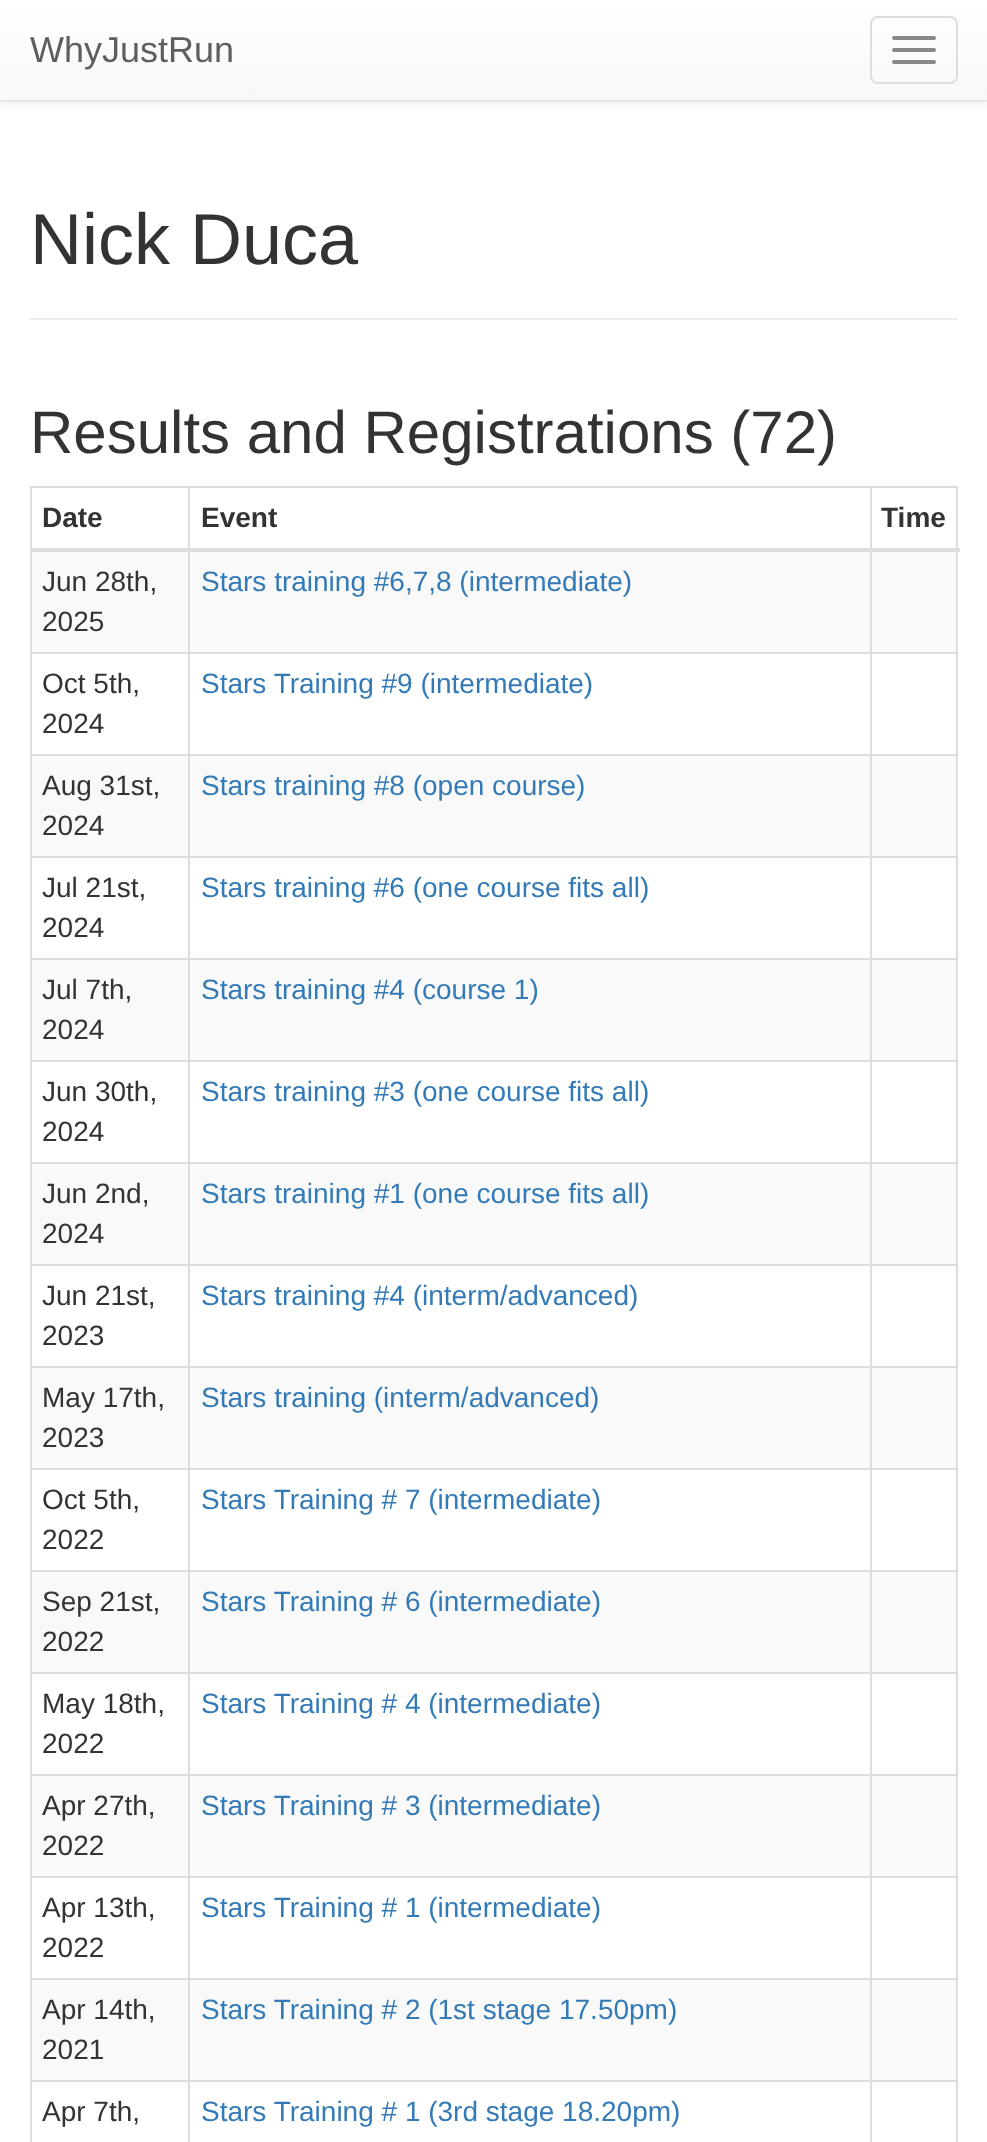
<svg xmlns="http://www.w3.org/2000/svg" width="987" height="2142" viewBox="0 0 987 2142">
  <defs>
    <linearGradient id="g1" gradientUnits="userSpaceOnUse" x1="494" y1="0" x2="494" y2="100"><stop offset="0" stop-color="#fff"/><stop offset="1" stop-color="#f8f8f8"/></linearGradient>
  </defs>
  <rect width="100%" height="100%" fill="#fff"/>
  <path d="M0 2h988v102H0z" fill="#00000012" filter="blur(5px)"/>
  <path d="M0 0h987v100H0z" fill="url(#g1)"/>
  <path d="M0 100h987v2H0z" fill="#e7e7e7"/>
  <rect x="871" y="17" width="86" height="66" rx="7" fill="none" stroke="#ddd" stroke-width="2"/>
  <rect x="892" y="36" width="44" height="4" rx="2" fill="#888"/>
  <rect x="892" y="48" width="44" height="4" rx="2" fill="#888"/>
  <rect x="892" y="60" width="44" height="4" rx="2" fill="#888"/>
  <path d="M30 318h928v2H30z" fill="#eee"/>
  <path d="M30 486h928v2H30z" fill="#ddd"/>
  <path d="M956 486h2v1656H956z" fill="#ddd"/>
  <path d="M30 486h2v1656H30z" fill="#ddd"/>
  <path d="M32 552h924v100H32z" fill="#f9f9f9"/>
  <path d="M870 652h88v2H870z" fill="#ddd"/>
  <path d="M870 754h88v2H870z" fill="#ddd"/>
  <path d="M32 756h924v100H32z" fill="#f9f9f9"/>
  <path d="M870 856h88v2H870z" fill="#ddd"/>
  <path d="M870 958h88v2H870z" fill="#ddd"/>
  <path d="M32 960h924v100H32z" fill="#f9f9f9"/>
  <path d="M870 1060h88v2H870z" fill="#ddd"/>
  <path d="M870 1162h88v2H870z" fill="#ddd"/>
  <path d="M32 1164h924v100H32z" fill="#f9f9f9"/>
  <path d="M870 1264h88v2H870z" fill="#ddd"/>
  <path d="M870 1366h88v2H870z" fill="#ddd"/>
  <path d="M32 1368h924v100H32z" fill="#f9f9f9"/>
  <path d="M870 1468h88v2H870z" fill="#ddd"/>
  <path d="M870 1570h88v2H870z" fill="#ddd"/>
  <path d="M32 1572h924v100H32z" fill="#f9f9f9"/>
  <path d="M870 1672h88v2H870z" fill="#ddd"/>
  <path d="M870 1774h88v2H870z" fill="#ddd"/>
  <path d="M32 1776h924v100H32z" fill="#f9f9f9"/>
  <path d="M870 1876h88v2H870z" fill="#ddd"/>
  <path d="M870 1978h88v2H870z" fill="#ddd"/>
  <path d="M32 1980h924v100H32z" fill="#f9f9f9"/>
  <path d="M870 2080h88v2H870z" fill="#ddd"/>
  <path d="M870 2080h2v62H870z" fill="#ddd"/>
  <path d="M188 2080h684v2H188z" fill="#ddd"/>
  <path d="M870 1978h2v104H870z" fill="#ddd"/>
  <path d="M188 1978h684v2H188z" fill="#ddd"/>
  <path d="M870 1876h2v104H870z" fill="#ddd"/>
  <path d="M188 1876h684v2H188z" fill="#ddd"/>
  <path d="M870 1774h2v104H870z" fill="#ddd"/>
  <path d="M188 1774h684v2H188z" fill="#ddd"/>
  <path d="M870 1672h2v104H870z" fill="#ddd"/>
  <path d="M188 1672h684v2H188z" fill="#ddd"/>
  <path d="M870 1570h2v104H870z" fill="#ddd"/>
  <path d="M188 1570h684v2H188z" fill="#ddd"/>
  <path d="M870 1468h2v104H870z" fill="#ddd"/>
  <path d="M188 1468h684v2H188z" fill="#ddd"/>
  <path d="M870 1366h2v104H870z" fill="#ddd"/>
  <path d="M188 1366h684v2H188z" fill="#ddd"/>
  <path d="M870 1264h2v104H870z" fill="#ddd"/>
  <path d="M188 1264h684v2H188z" fill="#ddd"/>
  <path d="M870 1162h2v104H870z" fill="#ddd"/>
  <path d="M188 1162h684v2H188z" fill="#ddd"/>
  <path d="M870 1060h2v104H870z" fill="#ddd"/>
  <path d="M188 1060h684v2H188z" fill="#ddd"/>
  <path d="M870 958h2v104H870z" fill="#ddd"/>
  <path d="M188 958h684v2H188z" fill="#ddd"/>
  <path d="M870 856h2v104H870z" fill="#ddd"/>
  <path d="M188 856h684v2H188z" fill="#ddd"/>
  <path d="M870 754h2v104H870z" fill="#ddd"/>
  <path d="M188 754h684v2H188z" fill="#ddd"/>
  <path d="M870 652h2v104H870z" fill="#ddd"/>
  <path d="M188 652h684v2H188z" fill="#ddd"/>
  <path d="M188 2080h2v62H188z" fill="#ddd"/>
  <path d="M30 2080h160v2H30z" fill="#ddd"/>
  <path d="M188 1978h2v104H188z" fill="#ddd"/>
  <path d="M30 1978h160v2H30z" fill="#ddd"/>
  <path d="M188 1876h2v104H188z" fill="#ddd"/>
  <path d="M30 1876h160v2H30z" fill="#ddd"/>
  <path d="M188 1774h2v104H188z" fill="#ddd"/>
  <path d="M30 1774h160v2H30z" fill="#ddd"/>
  <path d="M188 1672h2v104H188z" fill="#ddd"/>
  <path d="M30 1672h160v2H30z" fill="#ddd"/>
  <path d="M188 1570h2v104H188z" fill="#ddd"/>
  <path d="M30 1570h160v2H30z" fill="#ddd"/>
  <path d="M188 1468h2v104H188z" fill="#ddd"/>
  <path d="M30 1468h160v2H30z" fill="#ddd"/>
  <path d="M188 1366h2v104H188z" fill="#ddd"/>
  <path d="M30 1366h160v2H30z" fill="#ddd"/>
  <path d="M188 1264h2v104H188z" fill="#ddd"/>
  <path d="M30 1264h160v2H30z" fill="#ddd"/>
  <path d="M188 1162h2v104H188z" fill="#ddd"/>
  <path d="M30 1162h160v2H30z" fill="#ddd"/>
  <path d="M188 1060h2v104H188z" fill="#ddd"/>
  <path d="M30 1060h160v2H30z" fill="#ddd"/>
  <path d="M188 958h2v104H188z" fill="#ddd"/>
  <path d="M30 958h160v2H30z" fill="#ddd"/>
  <path d="M188 856h2v104H188z" fill="#ddd"/>
  <path d="M30 856h160v2H30z" fill="#ddd"/>
  <path d="M188 754h2v104H188z" fill="#ddd"/>
  <path d="M30 754h160v2H30z" fill="#ddd"/>
  <path d="M188 652h2v104H188z" fill="#ddd"/>
  <path d="M30 652h160v2H30z" fill="#ddd"/>
  <path d="M188 486h2v168H188z" fill="#ddd"/>
  <path d="M870 486h2v168H870z" fill="#ddd"/>
  <path d="M30 548h930v4H30z" fill="#ddd"/>
  <text x="30" y="62" font-family="Liberation Sans" font-size="36" fill="#5e5e5e">WhyJustRun</text>
  <text x="30" y="264" font-family="Liberation Sans" font-size="72" fill="#333">Nick Duca</text>
  <text x="30" y="453" font-family="Liberation Sans" font-size="60" fill="#333">Results and Registrations (72)</text>
  <g font-family="Liberation Sans" font-size="28" font-weight="bold" fill="#333">
    <text x="42" y="527">Date</text>
    <text x="201" y="527">Event</text>
    <text x="881" y="527">Time</text>
  </g>
  <g font-family="Liberation Sans" font-size="28" fill="#333">
    <text x="42" y="591">Jun 28th,</text>
    <text x="42" y="631">2025</text>
  </g>
  <text x="201" y="591" font-family="Liberation Sans" font-size="28" fill="#337ab7">Stars training #6,7,8 (intermediate)</text>
  <g font-family="Liberation Sans" font-size="28" fill="#333">
    <text x="42" y="693">Oct 5th,</text>
    <text x="42" y="733">2024</text>
  </g>
  <text x="201" y="693" font-family="Liberation Sans" font-size="28" fill="#337ab7">Stars Training #9 (intermediate)</text>
  <g font-family="Liberation Sans" font-size="28" fill="#333">
    <text x="42" y="795">Aug 31st,</text>
    <text x="42" y="835">2024</text>
  </g>
  <text x="201" y="795" font-family="Liberation Sans" font-size="28" fill="#337ab7">Stars training #8 (open course)</text>
  <g font-family="Liberation Sans" font-size="28" fill="#333">
    <text x="42" y="897">Jul 21st,</text>
    <text x="42" y="937">2024</text>
  </g>
  <text x="201" y="897" font-family="Liberation Sans" font-size="28" fill="#337ab7">Stars training #6 (one course fits all)</text>
  <g font-family="Liberation Sans" font-size="28" fill="#333">
    <text x="42" y="999">Jul 7th,</text>
    <text x="42" y="1039">2024</text>
  </g>
  <text x="201" y="999" font-family="Liberation Sans" font-size="28" fill="#337ab7">Stars training #4 (course 1)</text>
  <g font-family="Liberation Sans" font-size="28" fill="#333">
    <text x="42" y="1101">Jun 30th,</text>
    <text x="42" y="1141">2024</text>
  </g>
  <text x="201" y="1101" font-family="Liberation Sans" font-size="28" fill="#337ab7">Stars training #3 (one course fits all)</text>
  <g font-family="Liberation Sans" font-size="28" fill="#333">
    <text x="42" y="1203">Jun 2nd,</text>
    <text x="42" y="1243">2024</text>
  </g>
  <text x="201" y="1203" font-family="Liberation Sans" font-size="28" fill="#337ab7">Stars training #1 (one course fits all)</text>
  <g font-family="Liberation Sans" font-size="28" fill="#333">
    <text x="42" y="1305">Jun 21st,</text>
    <text x="42" y="1345">2023</text>
  </g>
  <text x="201" y="1305" font-family="Liberation Sans" font-size="28" fill="#337ab7">Stars training #4 (interm/advanced)</text>
  <g font-family="Liberation Sans" font-size="28" fill="#333">
    <text x="42" y="1407">May 17th,</text>
    <text x="42" y="1447">2023</text>
  </g>
  <text x="201" y="1407" font-family="Liberation Sans" font-size="28" fill="#337ab7">Stars training (interm/advanced)</text>
  <g font-family="Liberation Sans" font-size="28" fill="#333">
    <text x="42" y="1509">Oct 5th,</text>
    <text x="42" y="1549">2022</text>
  </g>
  <text x="201" y="1509" font-family="Liberation Sans" font-size="28" fill="#337ab7">Stars Training # 7 (intermediate)</text>
  <g font-family="Liberation Sans" font-size="28" fill="#333">
    <text x="42" y="1611">Sep 21st,</text>
    <text x="42" y="1651">2022</text>
  </g>
  <text x="201" y="1611" font-family="Liberation Sans" font-size="28" fill="#337ab7">Stars Training # 6 (intermediate)</text>
  <g font-family="Liberation Sans" font-size="28" fill="#333">
    <text x="42" y="1713">May 18th,</text>
    <text x="42" y="1753">2022</text>
  </g>
  <text x="201" y="1713" font-family="Liberation Sans" font-size="28" fill="#337ab7">Stars Training # 4 (intermediate)</text>
  <g font-family="Liberation Sans" font-size="28" fill="#333">
    <text x="42" y="1815">Apr 27th,</text>
    <text x="42" y="1855">2022</text>
  </g>
  <text x="201" y="1815" font-family="Liberation Sans" font-size="28" fill="#337ab7">Stars Training # 3 (intermediate)</text>
  <g font-family="Liberation Sans" font-size="28" fill="#333">
    <text x="42" y="1917">Apr 13th,</text>
    <text x="42" y="1957">2022</text>
  </g>
  <text x="201" y="1917" font-family="Liberation Sans" font-size="28" fill="#337ab7">Stars Training # 1 (intermediate)</text>
  <g font-family="Liberation Sans" font-size="28" fill="#333">
    <text x="42" y="2019">Apr 14th,</text>
    <text x="42" y="2059">2021</text>
  </g>
  <text x="201" y="2019" font-family="Liberation Sans" font-size="28" fill="#337ab7">Stars Training # 2 (1st stage 17.50pm)</text>
  <text x="42" y="2121" font-family="Liberation Sans" font-size="28" fill="#333">Apr 7th,</text>
  <text x="201" y="2121" font-family="Liberation Sans" font-size="28" fill="#337ab7">Stars Training # 1 (3rd stage 18.20pm)</text>
</svg>
